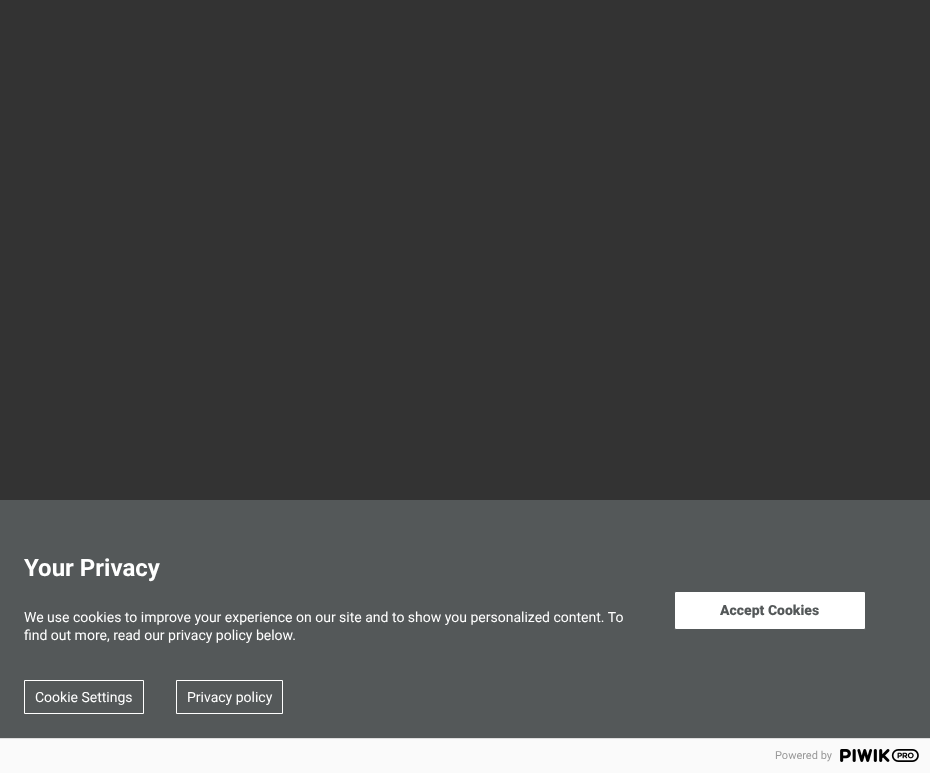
<svg xmlns="http://www.w3.org/2000/svg" width="930" height="773" viewBox="0 0 930 773">
  <rect width="100%" height="100%" fill="#333"/>
  <path d="M0 500h930v238H0z" fill="#545859"/>
  <rect x="674.5" y="591.5" width="191" height="38" rx="1.5" fill="#fff" stroke="#545859"/>
  <path d="M24.5 680.5h119v33H24.5z" fill="none" stroke="#fff"/>
  <path d="M176.5 680.5h106v33H176.5z" fill="none" stroke="#fff"/>
  <path d="M0 739h930v34H0z" fill="#fafafa"/>
  <path d="M0 738h930v1H0z" fill="#ddd"/>
  <image x="840" y="749" width="79" height="13" href="img/1.png"/>
  <text x="24" y="576" font-family="Roboto" font-size="24" font-weight="bold" fill="#fff">Your Privacy</text>
  <g font-family="Roboto" font-size="14" fill="#fff">
    <text x="24" y="622">We use cookies to improve your experience on our site and to show you personalized content. To</text>
    <text x="24" y="640">find out more, read our privacy policy below.</text>
  </g>
  <text x="720" y="615" font-family="Roboto" font-size="14" font-weight="900" fill="#545859">Accept Cookies</text>
  <g font-family="Roboto" font-size="14" fill="#fff">
    <text x="35" y="702">Cookie Settings</text>
    <text x="187" y="702">Privacy policy</text>
  </g>
  <text x="775" y="759" font-family="Roboto" font-size="11" fill="#999">Powered by</text>
</svg>
